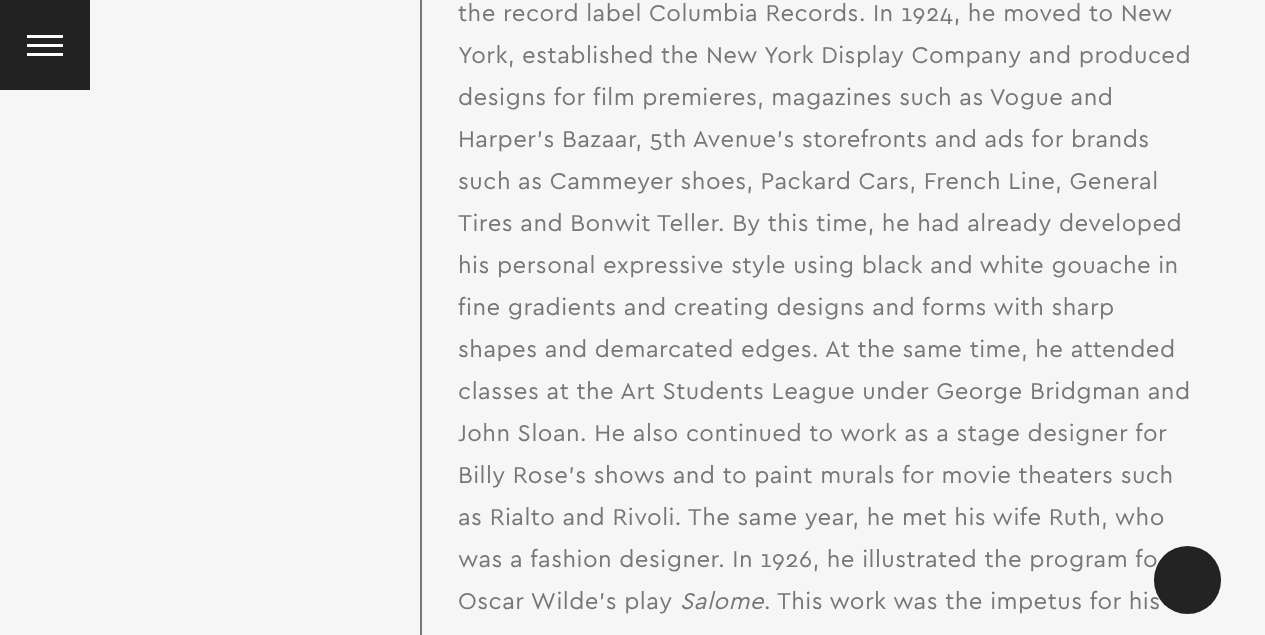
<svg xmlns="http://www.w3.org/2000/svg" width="1265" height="635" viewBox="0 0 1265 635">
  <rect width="100%" height="100%" fill="#f6f6f6"/>
  <path d="M0 0h90v90H0z" fill="#222"/>
  <path d="M27 35h36v3H27z" fill="#fff"/>
  <path d="M27 44h36v3H27z" fill="#fff"/>
  <path d="M27 53h36v3H27z" fill="#fff"/>
  <path d="M420 0h2v635H420z" fill="#777"/>
  <g font-family="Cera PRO" font-size="24" letter-spacing="0.45" fill="#777">
    <text x="458" y="21">the record label Columbia Records. In 1924, he moved to New</text>
    <text x="458" y="63">York, established the New York Display Company and produced</text>
    <text x="458" y="105">designs for film premieres, magazines such as Vogue and</text>
    <text x="458" y="147">Harper’s Bazaar, 5th Avenue’s storefronts and ads for brands</text>
    <text x="458" y="189">such as Cammeyer shoes, Packard Cars, French Line, General</text>
    <text x="458" y="231">Tires and Bonwit Teller. By this time, he had already developed</text>
    <text x="458" y="273">his personal expressive style using black and white gouache in</text>
    <text x="458" y="315">fine gradients and creating designs and forms with sharp</text>
    <text x="458" y="357">shapes and demarcated edges. At the same time, he attended</text>
    <text x="458" y="399">classes at the Art Students League under George Bridgman and</text>
    <text x="458" y="441">John Sloan. He also continued to work as a stage designer for</text>
    <text x="458" y="483">Billy Rose’s shows and to paint murals for movie theaters such</text>
    <text x="458" y="525">as Rialto and Rivoli. The same year, he met his wife Ruth, who</text>
    <text x="458" y="567">was a fashion designer. In 1926, he illustrated the program fo</text>
    <text x="458" y="609">Oscar Wilde’s play</text>
  </g>
  <text x="680" y="609" font-family="Cera PRO" font-size="24" font-style="italic" letter-spacing="0.45" fill="#777">Salome</text>
  <text x="764" y="609" font-family="Cera PRO" font-size="24" letter-spacing="0.45" fill="#777">. This work was the impetus for his</text>
  <rect x="1154" y="546" width="67" height="68" rx="33.5" fill="#232323"/>
</svg>
